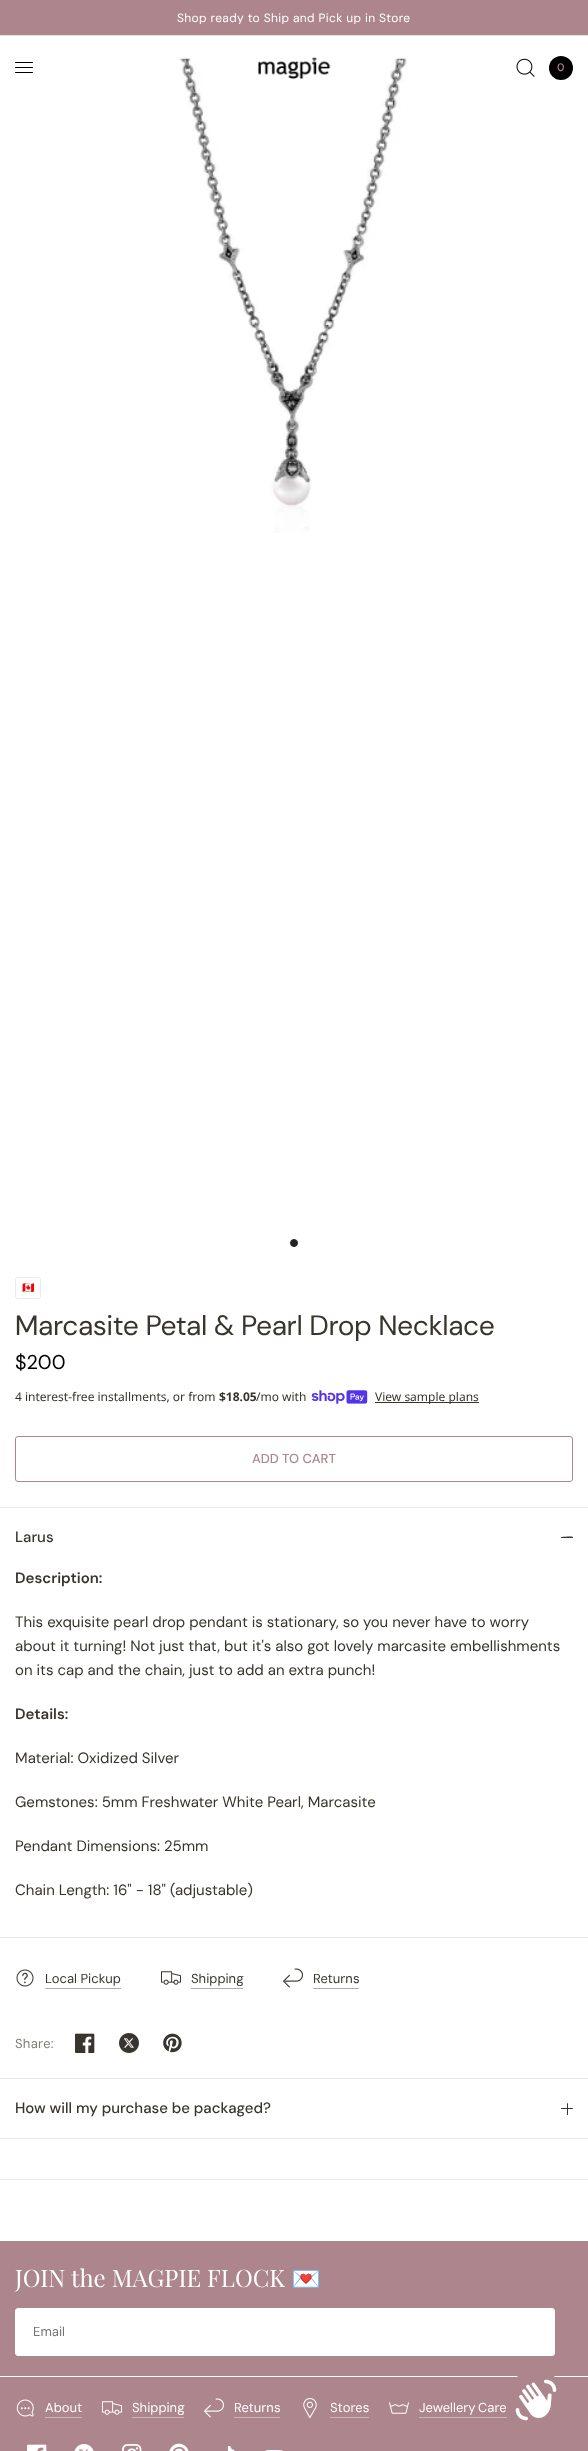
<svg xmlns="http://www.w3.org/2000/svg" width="588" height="2451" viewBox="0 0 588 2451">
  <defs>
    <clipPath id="clip1"><path d="M44 12h500v12H44z"/></clipPath>
  </defs>
  <rect width="100%" height="100%" fill="#fff"/>
  <path d="M0 0h588v35H0z" fill="#ac868c"/>
  <path d="M0 35h588v1H0z" fill="#e2e2e2"/>
  <rect x="15" y="62" width="18" height="1" rx="0.5" fill="#000"/>
  <rect x="15" y="67" width="18" height="1" rx="0.5" fill="#000"/>
  <rect x="15" y="72" width="18" height="1" rx="0.5" fill="#000"/>
  <image x="179" y="57" width="228" height="476" href="img/3.png"/>
  <image x="258" y="57" width="73" height="22" href="img/1.png"/>
  <image x="516" y="58" width="19" height="19" href="img/2.png"/>
  <circle cx="561" cy="68" r="12" fill="#000"/>
  <path d="M0 2179h588v1H0z" fill="#eaeaea"/>
  <circle cx="294" cy="1243" r="3.5" fill="#232323" stroke="#232323"/>
  <rect x="15.5" y="1277.5" width="25" height="21" rx="2.5" fill="none" stroke="#eaeaea"/>
  <image x="311" y="1390" width="57" height="14" href="img/4.png"/>
  <path d="M375 1402h104v1H375z" fill="#38352f"/>
  <rect x="15.5" y="1436.5" width="557" height="45" rx="2.5" fill="none" stroke="#ac868c"/>
  <path d="M0 1507h588v1H0z" fill="#eaeaea"/>
  <path d="M0 1937h588v1H0z" fill="#eaeaea"/>
  <path d="M573 1537L572.5 1538C568.5 1538 561 1538.5 561 1537H561.5C565.5 1536.5 573 1536 573 1537Z" fill="#38352f"/>
  <rect x="561" y="1537" width="12" height="1" rx="0.5" fill="#38352f"/>
  <image x="16" y="1969" width="18" height="18" href="img/5.png"/>
  <path d="M45 1988h76v1H45z" fill="#afaeac"/>
  <image x="161" y="1971" width="20" height="14" href="img/6.png"/>
  <path d="M191 1988h52v1H191z" fill="#afaeac"/>
  <image x="283" y="1968" width="20" height="20" href="img/7.png"/>
  <path d="M313 1988h46v1H313z" fill="#afaeac"/>
  <image x="75" y="2033" width="20" height="20" href="img/8.png"/>
  <image x="119" y="2033" width="20" height="20" href="img/9.png"/>
  <image x="163" y="2033" width="19" height="20" href="img/10.png"/>
  <path d="M0 2078h588v1H0z" fill="#eaeaea"/>
  <path d="M0 2138h588v1H0z" fill="#eaeaea"/>
  <rect x="567" y="2103" width="1" height="12" rx="0.5" fill="#38352f"/>
  <rect x="561" y="2108" width="12" height="1" rx="0.5" fill="#38352f"/>
  <path d="M0 2241h588v135H0z" fill="#ac868c"/>
  <rect x="15.5" y="2308.5" width="539" height="47" rx="2.5" fill="#fff" stroke="#fff"/>
  <path d="M0 2377h588v74H0z" fill="#ac868c"/>
  <image x="16" y="2399" width="18" height="18" href="img/11.png"/>
  <path d="M45 2417h37v1H45z" fill="#cdb6ba"/>
  <image x="102" y="2401" width="20" height="14" href="img/12.png"/>
  <path d="M132 2417h52v1H132z" fill="#cdb6ba"/>
  <image x="204" y="2398" width="20" height="20" href="img/13.png"/>
  <path d="M234 2417h46v1H234z" fill="#cdb6ba"/>
  <image x="303" y="2398" width="14" height="20" href="img/14.png"/>
  <path d="M330 2417h39v1H330z" fill="#cdb6ba"/>
  <image x="389" y="2402" width="20" height="12" href="img/15.png"/>
  <path d="M419 2417h88v1H419z" fill="#cdb6ba"/>
  <image x="27" y="2444" width="20" height="7" href="img/16.png"/>
  <image x="74" y="2444" width="20" height="7" href="img/17.png"/>
  <image x="122" y="2444" width="20" height="7" href="img/18.png"/>
  <image x="169" y="2443" width="20" height="8" href="img/19.png"/>
  <image x="227" y="2446" width="8" height="5" href="img/20.png"/>
  <image x="265" y="2450" width="18" height="1" href="img/21.png"/>
  <g clip-path="url(#clip1)">
    <text x="177" y="22" font-family="DM Sans" font-size="12" letter-spacing="0.35" fill="#fff">Shop ready to Ship and Pick up in Store</text>
  </g>
  <text x="557" y="71" font-family="'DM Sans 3'" font-size="11" font-weight="500" fill="#ac868c">0</text>
  <text x="22" y="1291" font-family="Noto Color Emoji" font-size="10" fill="#38352f">🇨🇦</text>
  <text x="15" y="1335" font-family="'DM Sans 3'" font-size="28" fill="#38352f">Marcasite Petal &amp; Pearl Drop Necklace</text>
  <text x="15" y="1369" font-family="'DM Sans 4'" font-size="20" fill="#000">$200</text>
  <text x="15" y="1401" font-family="Noto Sans" font-size="12" fill="#38352f">4 interest-free installments, or from</text>
  <text x="219" y="1401" font-family="Noto Sans" font-size="12" font-weight="bold" fill="#38352f">$18.05</text>
  <g font-family="Noto Sans" font-size="12" fill="#38352f">
    <text x="256" y="1401">/mo with</text>
    <text x="375" y="1401">View sample plans</text>
  </g>
  <text x="252" y="1463" font-family="'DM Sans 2'" font-size="13" font-weight="500" fill="#ac868c">ADD TO CART</text>
  <text x="15" y="1542" font-family="DM Sans" font-size="15" font-weight="500" fill="#38352f">Larus</text>
  <text x="15" y="1583" font-family="DM Sans" font-size="15" font-weight="600" fill="#38352f">Description:</text>
  <g font-family="'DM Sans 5'" font-size="15" fill="#38352f">
    <text x="15" y="1627">This exquisite pearl drop pendant is stationary, so you never have to worry</text>
    <text x="15" y="1651">about it turning! Not just that, but it's also got lovely marcasite embellishments</text>
    <text x="15" y="1675">on its cap and the chain, just to add an extra punch!</text>
  </g>
  <text x="15" y="1719" font-family="DM Sans" font-size="15" font-weight="600" fill="#38352f">Details:</text>
  <g font-family="'DM Sans 5'" font-size="15" fill="#38352f">
    <text x="15" y="1763">Material: Oxidized Silver</text>
    <text x="15" y="1807">Gemstones: 5mm Freshwater White Pearl, Marcasite</text>
    <text x="15" y="1851">Pendant Dimensions: 25mm</text>
    <text x="15" y="1895">Chain Length: 16" - 18" (adjustable)</text>
  </g>
  <g font-family="'DM Sans 2'" font-size="13" fill="#38352f">
    <text x="45" y="1983">Local Pickup</text>
    <text x="191" y="1983">Shipping</text>
    <text x="313" y="1983">Returns</text>
  </g>
  <text x="15" y="2048" font-family="'DM Sans 2'" font-size="13" letter-spacing="0.25" fill="#7e7c78">Share:</text>
  <text x="15" y="2113" font-family="DM Sans" font-size="15" font-weight="500" fill="#38352f">How will my purchase be packaged?</text>
  <text x="15" y="2287" font-family="Playfair Display" font-size="24" fill="#fff">JOIN the MAGPIE FLOCK</text>
  <text x="291" y="2287" font-family="Noto Color Emoji" font-size="24" fill="#fff">💌</text>
  <text x="33" y="2336" font-family="'DM Sans 2'" font-size="13" fill="#757575">Email</text>
  <g font-family="'DM Sans 2'" font-size="13" fill="#fff">
    <text x="45" y="2412">About</text>
    <text x="132" y="2412">Shipping</text>
    <text x="234" y="2412">Returns</text>
    <text x="330" y="2412">Stores</text>
    <text x="419" y="2412" word-spacing="-1">Jewellery Care</text>
  </g>
  <circle cx="536" cy="2400" r="30" fill="#ac868c"/>
  <image x="515" y="2379" width="42" height="42" href="img/22.png"/>
</svg>
